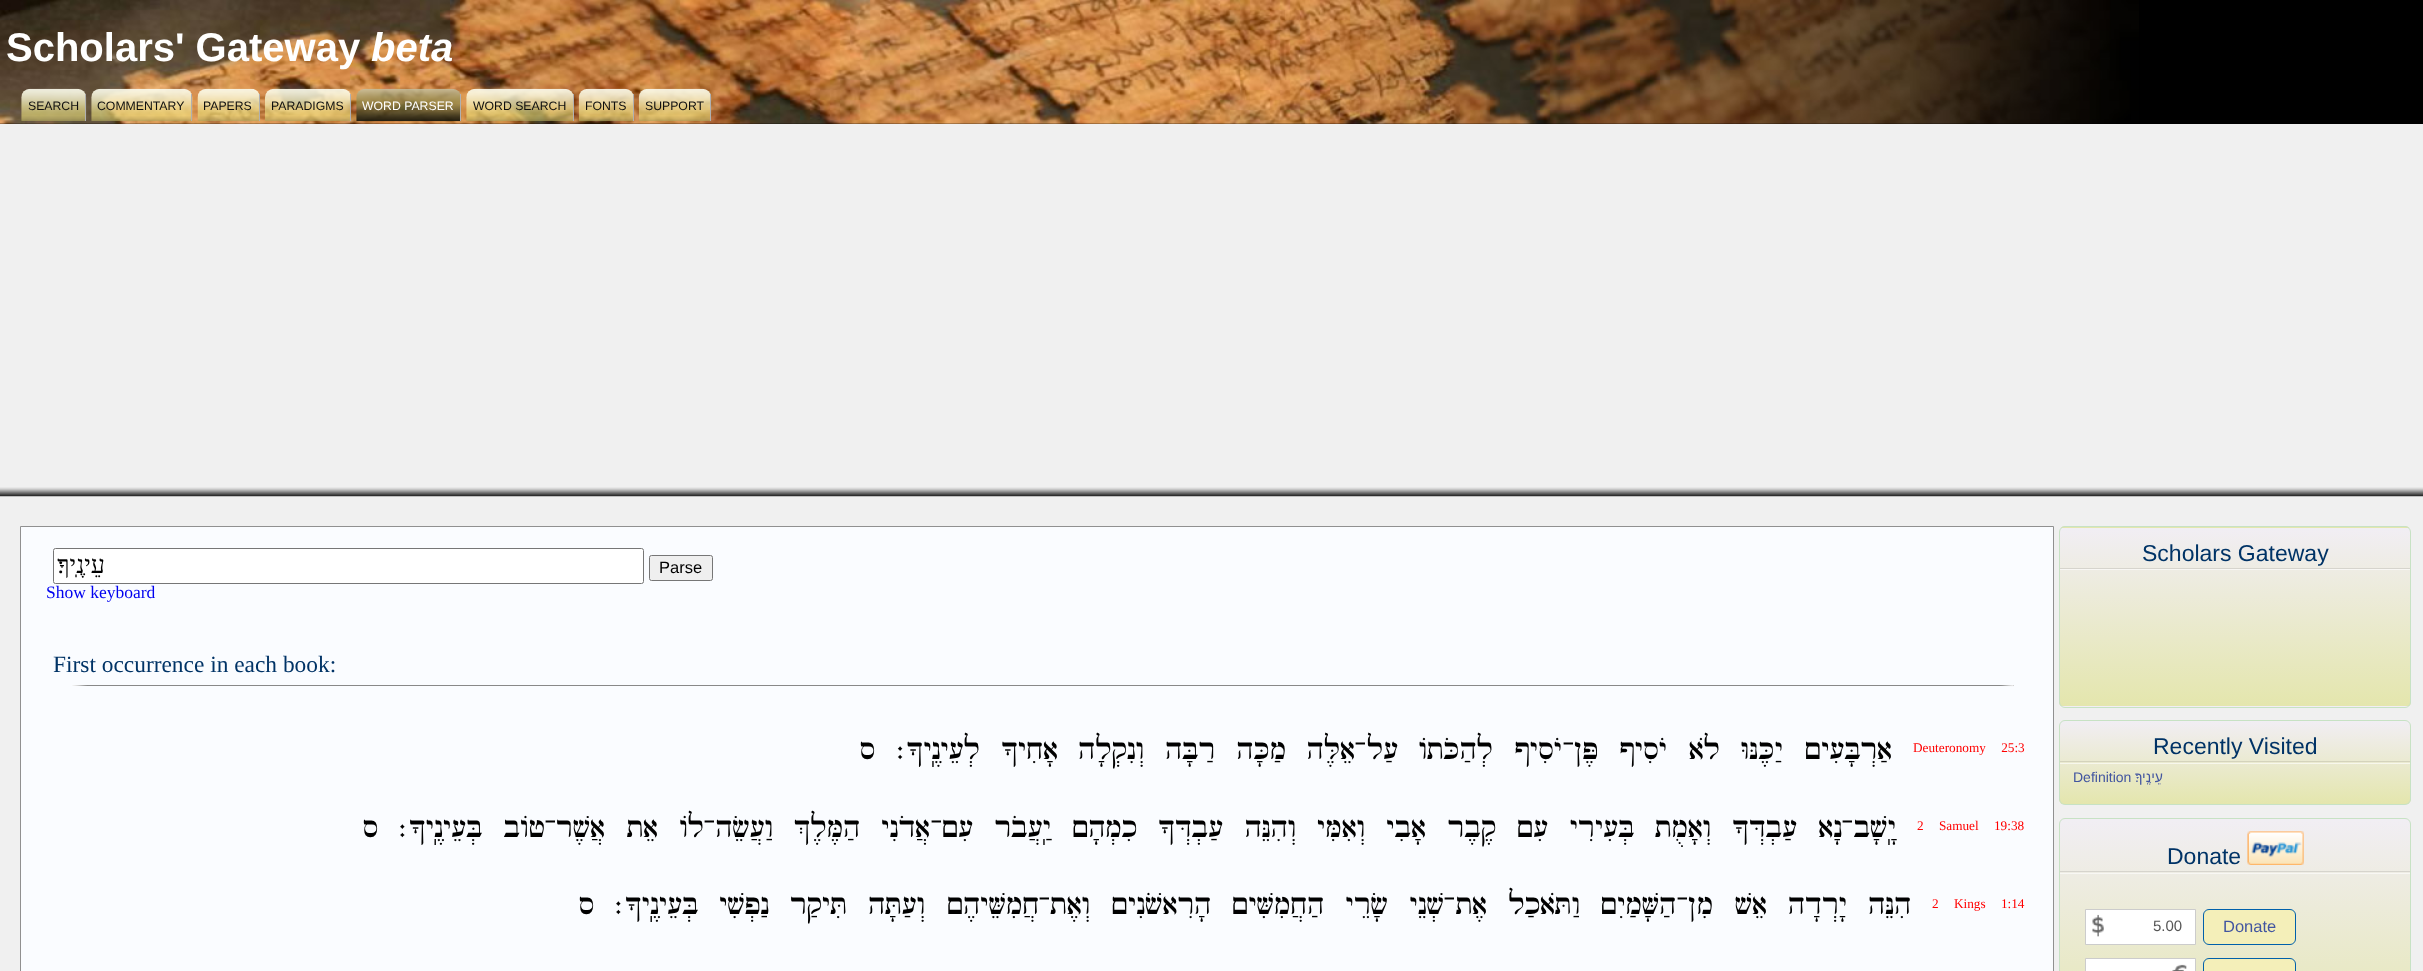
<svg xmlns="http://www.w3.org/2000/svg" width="2423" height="971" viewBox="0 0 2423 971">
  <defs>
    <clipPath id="clip1"><rect x="2059" y="526" width="352" height="182" rx="6"/></clipPath>
    <linearGradient id="g1" gradientUnits="userSpaceOnUse" x1="2060" y1="349" x2="2060" y2="528"><stop offset="0" stop-color="#f1eef4"/><stop offset="1" stop-color="#e4e6ad"/></linearGradient>
    <linearGradient id="g2" gradientUnits="userSpaceOnUse" x1="2060" y1="528" x2="2060" y2="706"><stop offset="0" stop-color="#f1eef4"/><stop offset="1" stop-color="#e4e6ad"/></linearGradient>
    <linearGradient id="g3" gradientUnits="userSpaceOnUse" x1="2060" y1="706" x2="2060" y2="885"><stop offset="0" stop-color="#f1eef4"/><stop offset="1" stop-color="#e4e6ad"/></linearGradient>
    <clipPath id="clip2"><rect x="2059" y="720" width="352" height="85" rx="6"/></clipPath>
    <linearGradient id="g4" gradientUnits="userSpaceOnUse" x1="2060" y1="721" x2="2060" y2="804"><stop offset="0" stop-color="#f1eef4"/><stop offset="1" stop-color="#e4e6ad"/></linearGradient>
    <clipPath id="clip3"><rect x="2059" y="818" width="352" height="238" rx="6"/></clipPath>
    <linearGradient id="g5" gradientUnits="userSpaceOnUse" x1="2060" y1="819" x2="2060" y2="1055"><stop offset="0" stop-color="#f1eef4"/><stop offset="1" stop-color="#e4e6ad"/></linearGradient>
  </defs>
  <rect width="100%" height="100%" fill="#f0f0f0"/>
  <path d="M0 0h2423v124H0z" fill="#000"/>
  <image x="0" y="0" width="2139" height="124" href="img/1.png"/>
  <image x="638" y="88" width="74" height="33" href="img/2.png"/>
  <path d="M710 94h1v27H710z" fill="#b0b0b0"/>
  <image x="578" y="88" width="56" height="34" href="img/3.png"/>
  <path d="M633 94h1v27H633z" fill="#b0b0b0"/>
  <image x="466" y="88" width="108" height="34" href="img/4.png"/>
  <path d="M573 94h1v27H573z" fill="#b0b0b0"/>
  <image x="356" y="88" width="106" height="34" href="img/5.png"/>
  <path d="M460 94h1v27H460z" fill="#b0b0b0"/>
  <image x="265" y="88" width="87" height="33" href="img/6.png"/>
  <path d="M350 94h1v27H350z" fill="#b0b0b0"/>
  <image x="197" y="88" width="63" height="33" href="img/7.png"/>
  <path d="M259 94h1v27H259z" fill="#b0b0b0"/>
  <image x="91" y="88" width="102" height="34" href="img/8.png"/>
  <path d="M191 94h1v27H191z" fill="#b0b0b0"/>
  <image x="21" y="88" width="66" height="33" href="img/9.png"/>
  <path d="M85 94h1v27H85z" fill="#b0b0b0"/>
  <image x="0" y="487" width="2423" height="10" href="img/10.png"/>
  <g clip-path="url(#clip1)">
    <path d="M2059 526h352v2H2059z" fill="url(#g1)"/>
    <path d="M2059 528h352v178H2059z" fill="url(#g2)"/>
    <path d="M2059 706h352v2H2059z" fill="url(#g3)"/>
  </g>
  <rect x="2059.5" y="526.5" width="351" height="181" rx="5.5" fill="none" stroke="#c7e2c4"/>
  <path d="M2060 568h350v1H2060z" fill="#d6d4cd"/>
  <path d="M2060 569h350v1H2060z" fill="#f8f7f4"/>
  <g clip-path="url(#clip2)">
    <path d="M2059 721h352v83H2059z" fill="url(#g4)"/>
  </g>
  <rect x="2059.5" y="720.5" width="351" height="84" rx="5.5" fill="none" stroke="#c7e2c4"/>
  <path d="M2060 761h350v1H2060z" fill="#d4d3bc"/>
  <path d="M2060 763h350v1H2060z" fill="#f7f7ec"/>
  <g clip-path="url(#clip3)">
    <path d="M2059 819h352v152H2059z" fill="url(#g5)"/>
  </g>
  <rect x="2059.5" y="818.5" width="351" height="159" rx="5.5" fill="none" stroke="#c7e2c4"/>
  <image x="2247" y="831" width="57" height="34" href="img/11.png"/>
  <path d="M2060 871h350v1H2060z" fill="#d6d4cd"/>
  <path d="M2060 873h350v1H2060z" fill="#f8f7f4"/>
  <rect x="2203.5" y="909.5" width="92" height="35" rx="5.5" fill="#f4efb9" stroke="#0060ab"/>
  <path d="M2086 910h109v34H2086z" fill="#fff"/>
  <image x="2092" y="914" width="12" height="23" href="img/12.png"/>
  <path d="M2085.5 909.5h110v35H2085.5z" fill="none" stroke="#ccc"/>
  <rect x="2203.5" y="958.5" width="92" height="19" rx="5.5" fill="#f4efb9" stroke="#0060ab"/>
  <path d="M2086 959h109v12H2086z" fill="#fff"/>
  <image x="2172" y="964" width="15" height="7" href="img/13.png"/>
  <path d="M2085.5 958.5h110v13H2085.5z" fill="none" stroke="#ccc"/>
  <path d="M20.5 526.5h2033v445H20.5z" fill="#fafcff" stroke="#909090"/>
  <rect x="649.5" y="555.5" width="63" height="25" rx="2" fill="#efefef" stroke="#767676"/>
  <rect x="53.5" y="548.5" width="590" height="35" rx="2" fill="#fff" stroke="#767676"/>
  <path d="M73 685h1941v1H73z" fill="#888"/>
  <image x="72" y="685" width="15" height="1" href="img/14.png"/>
  <image x="2000" y="685" width="14" height="2" href="img/15.png"/>
  <text x="371" y="61" font-family="Liberation Sans" font-size="40" font-weight="bold" font-style="italic" fill="#fff">beta</text>
  <text x="6" y="61" font-family="Liberation Sans" font-size="40" font-weight="bold" fill="#fff">Scholars' Gateway</text>
  <g font-family="Liberation Sans" font-size="12.25" fill="#0f0f0f">
    <text x="645" y="110">SUPPORT</text>
    <text x="585" y="110">FONTS</text>
    <text x="473" y="110">WORD SEARCH</text>
  </g>
  <text x="362" y="110" font-family="Liberation Sans" font-size="12.25" fill="#fff">WORD PARSER</text>
  <g font-family="Liberation Sans" font-size="12.25" fill="#0f0f0f">
    <text x="271" y="110">PARADIGMS</text>
    <text x="203" y="110">PAPERS</text>
    <text x="97" y="110">COMMENTARY</text>
    <text x="28" y="110">SEARCH</text>
  </g>
  <g font-family="Liberation Sans" font-size="23" fill="#036">
    <text x="2142" y="561">Scholars Gateway</text>
    <text x="2153" y="754">Recently Visited</text>
  </g>
  <text x="2163" y="782" font-family="Liberation Sans" font-size="14" direction="rtl" fill="#4255a0">עֵינֶֽיךָ׃</text>
  <text x="2073" y="782" font-family="Liberation Sans" font-size="14" fill="#4255a0">Definition</text>
  <text x="2167" y="864" font-family="Liberation Sans" font-size="23" fill="#036">Donate</text>
  <text x="2223" y="932" font-family="Liberation Sans" font-size="16.5" fill="#4255a0">Donate</text>
  <text x="2153" y="931" font-family="Liberation Sans" font-size="15" fill="#555">5.00</text>
  <text x="659" y="573" font-family="Liberation Sans" font-size="16.5" fill="#000">Parse</text>
  <text x="105" y="573" font-family="Liberation Serif" font-size="25" direction="rtl" fill="#000">עֵינֶֽיךָ׃</text>
  <text x="46" y="598" font-family="Liberation Serif" font-size="17.5" fill="#0000f0">Show keyboard</text>
  <text x="53" y="672" font-family="Liberation Serif" font-size="23.4" fill="#036">First occurrence in each book:</text>
  <text x="1913" y="752" word-spacing="12" font-family="Liberation Serif" font-size="13.25" fill="#f00">Deuteronomy 25:3</text>
  <g font-family="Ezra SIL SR" font-size="25" direction="rtl" fill="#000">
    <text x="1892" y="759">אַרְבָּעִים</text>
    <text x="1783" y="759">יַכֶּנּוּ</text>
    <text x="1720" y="759">לֹא</text>
    <text x="1667" y="759">יֹסִיף</text>
    <text x="1598" y="759">פֶּן</text>
    <text x="1574" y="759">־</text>
    <text x="1562" y="759">יֹסִיף</text>
    <text x="1493" y="759">לְהַכֹּתֹו</text>
    <text x="1398" y="759">עַל</text>
    <text x="1366" y="759">־</text>
    <text x="1355" y="759">אֵלֶּה</text>
    <text x="1286" y="759">מַכָּה</text>
    <text x="1215" y="759">רַבָּה</text>
    <text x="1144" y="759">וְנִקְלָה</text>
    <text x="1058" y="759">אָחִיךָ</text>
    <text x="980" y="759">לְעֵינֶֽיךָ׃</text>
    <text x="875" y="759">ס</text>
  </g>
  <text x="1917" y="830" word-spacing="12" font-family="Liberation Serif" font-size="13.25" fill="#f00">2 Samuel 19:38</text>
  <g font-family="Ezra SIL SR" font-size="25" direction="rtl" fill="#000">
    <text x="1896" y="837">יָֽשָׁב</text>
    <text x="1853" y="837">־</text>
    <text x="1842" y="837">נָא</text>
    <text x="1797" y="837">עַבְדְּךָ</text>
    <text x="1711" y="837">וְאָמֻת</text>
    <text x="1634" y="837">בְּעִירִי</text>
    <text x="1548" y="837">עִם</text>
    <text x="1496" y="837">קֶבֶר</text>
    <text x="1426" y="837">אָבִי</text>
    <text x="1365" y="837">וְאִמִּי</text>
    <text x="1296" y="837">וְהִנֵּה</text>
    <text x="1223" y="837">עַבְדְּךָ</text>
    <text x="1137" y="837">כִמְהָם</text>
    <text x="1051" y="837">יַֽעֲבֹר</text>
    <text x="973" y="837">עִם</text>
    <text x="942" y="837">־</text>
    <text x="930" y="837">אֲדֹנִי</text>
    <text x="860" y="837">הַמֶּלֶךְ</text>
    <text x="773" y="837">וַעֲשֵׂה</text>
    <text x="715" y="837">־</text>
    <text x="704" y="837">לֹו</text>
    <text x="658" y="837">אֵת</text>
    <text x="605" y="837">אֲשֶׁר</text>
    <text x="556" y="837">־</text>
    <text x="545" y="837">טֹוב</text>
    <text x="482" y="837">בְּעֵינֶֽיךָ׃</text>
    <text x="378" y="837">ס</text>
    <text x="1911" y="914">הִנֵּה</text>
    <text x="1847" y="914">יָרְדָה</text>
    <text x="1767" y="914">אֵשׁ</text>
    <text x="1713" y="914">מִן</text>
    <text x="1688" y="914">־</text>
    <text x="1676" y="914">הַשָּׁמַיִם</text>
    <text x="1580" y="914">וַתֹּאכַל</text>
    <text x="1487" y="914">אֶת</text>
    <text x="1455" y="914">־</text>
    <text x="1444" y="914">שְׁנֵי</text>
    <text x="1388" y="914">שָׂרֵי</text>
    <text x="1324" y="914">הַחֲמִשִּׁים</text>
    <text x="1211" y="914">הָרִאשֹׁנִים</text>
    <text x="1090" y="914">וְאֶת</text>
    <text x="1050" y="914">־</text>
    <text x="1039" y="914">חֲמִשֵּׁיהֶם</text>
    <text x="925" y="914">וְעַתָּה</text>
    <text x="847" y="914">תִּיקַר</text>
    <text x="769" y="914">נַפְשִׁי</text>
    <text x="698" y="914">בְּעֵינֶֽיךָ׃</text>
    <text x="594" y="914">ס</text>
  </g>
  <text x="1932" y="908" word-spacing="12" font-family="Liberation Serif" font-size="13.25" fill="#f00">2 Kings 1:14</text>
</svg>
